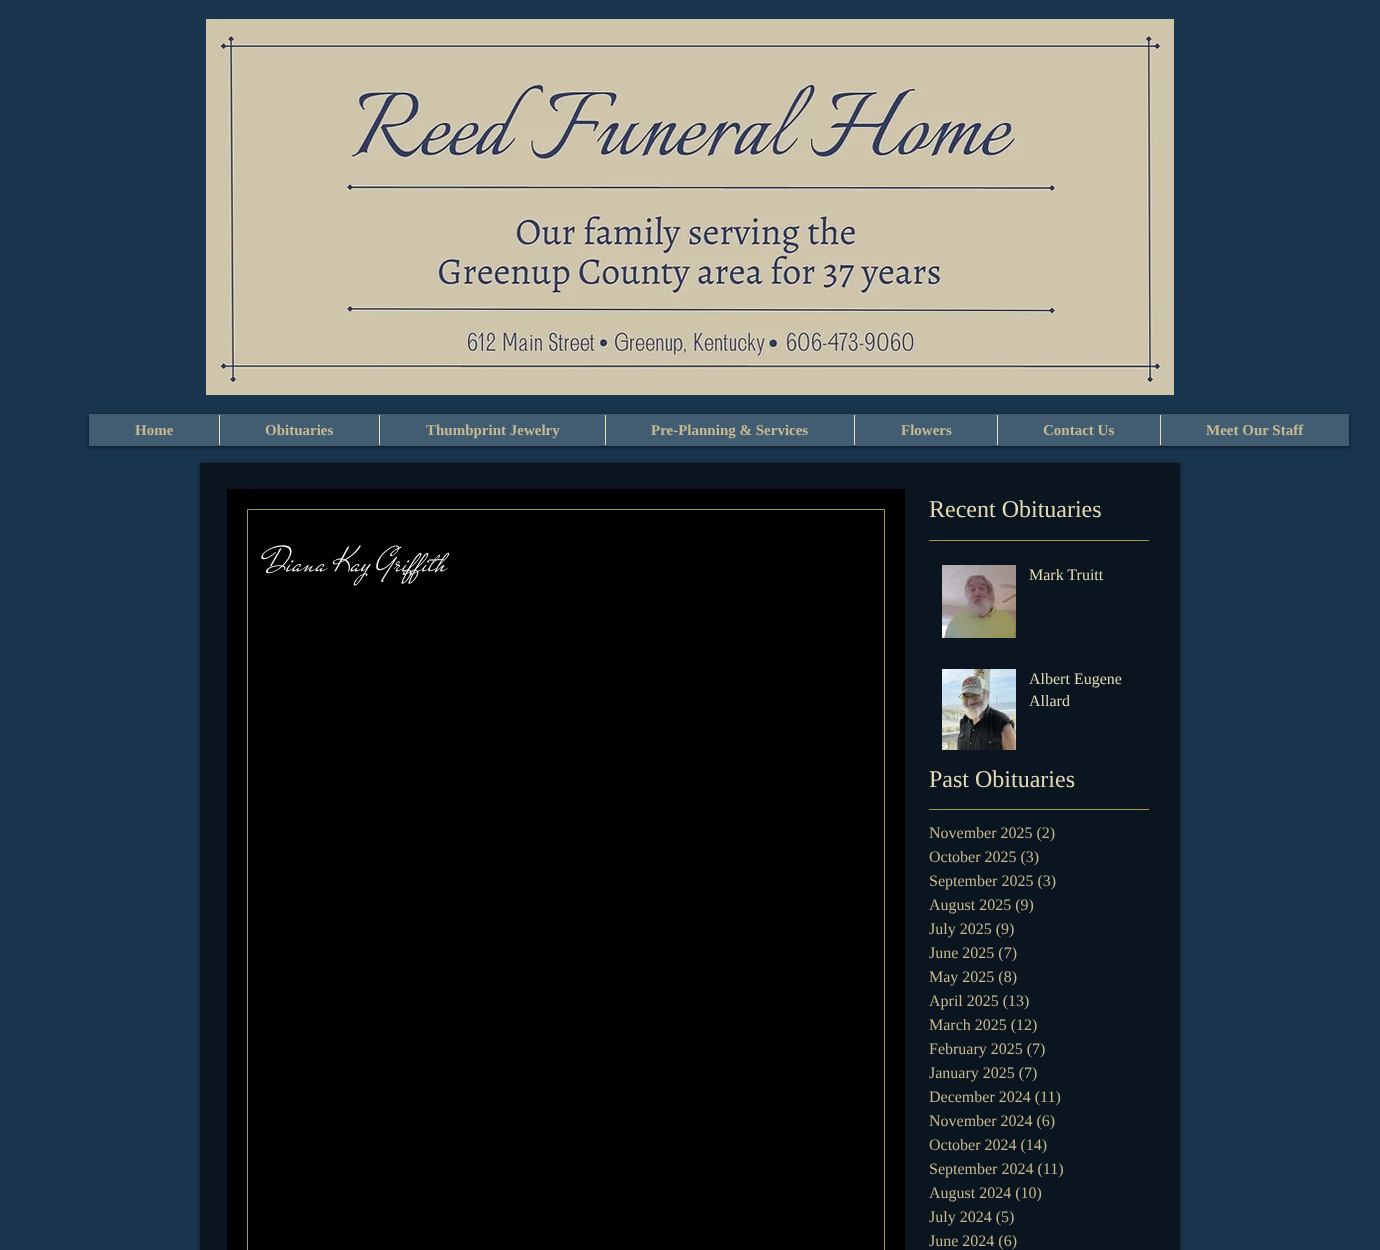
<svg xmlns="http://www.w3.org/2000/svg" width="1380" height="1250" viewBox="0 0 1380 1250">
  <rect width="100%" height="100%" fill="#19344d"/>
  <image x="206" y="19" width="968" height="376" href="img/1.png"/>
  <path d="M89 415h1260v32H89z" fill="#00000099" filter="blur(2px)"/>
  <path d="M89 414h1260v32H89z" fill="#425c72"/>
  <path d="M219 415h1v30H219z" fill="#e3dab8"/>
  <path d="M379 415h1v30H379z" fill="#e3dab8"/>
  <path d="M605 415h1v30H605z" fill="#e3dab8"/>
  <path d="M854 415h1v30H854z" fill="#e3dab8"/>
  <path d="M997 415h1v30H997z" fill="#e3dab8"/>
  <path d="M1160 415h1v30H1160z" fill="#e3dab8"/>
  <path d="M200 464h980v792H200z" fill="#00000099" filter="blur(2px)"/>
  <path d="M200 463h980v787H200z" fill="#0a151f"/>
  <path d="M929 540h220v1H929z" fill="#aa9550"/>
  <path d="M227 489h678v761H227z" fill="#000"/>
  <path d="M247.5 509.5h637v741H247.5z" fill="none" stroke="#aa9550"/>
  <image x="942" y="565" width="74" height="73" href="img/2.png"/>
  <image x="942" y="669" width="74" height="81" href="img/3.png"/>
  <path d="M929 809h220v1H929z" fill="#aa9550"/>
  <g font-family="Liberation Serif" font-size="15" font-weight="bold" fill="#c6ba92">
    <text x="135" y="435">Home</text>
    <text x="265" y="435">Obituaries</text>
    <text x="426" y="435">Thumbprint Jewelry</text>
    <text x="651" y="435">Pre-Planning &amp; Services</text>
    <text x="901" y="435">Flowers</text>
    <text x="1043" y="435">Contact Us</text>
    <text x="1206" y="435">Meet Our Staff</text>
  </g>
  <text x="929" y="517" font-family="Liberation Serif" font-size="24" fill="#e3dab8">Recent Obituaries</text>
  <text x="266" y="571" font-family="Mr De Haviland" font-size="35" fill="#fff">Diana Kay Griffith</text>
  <g font-family="Liberation Serif" font-size="16" fill="#e3dab8">
    <text x="1029" y="580">Mark Truitt</text>
    <text x="1029" y="684">Albert Eugene</text>
    <text x="1029" y="706">Allard</text>
  </g>
  <text x="929" y="787" font-family="Liberation Serif" font-size="24" fill="#e3dab8">Past Obituaries</text>
  <g font-family="Liberation Serif" font-size="16" fill="#c6ba92">
    <text x="929" y="838">November 2025 (2)</text>
    <text x="929" y="862">October 2025 (3)</text>
    <text x="929" y="886">September 2025 (3)</text>
    <text x="929" y="910">August 2025 (9)</text>
    <text x="929" y="934">July 2025 (9)</text>
    <text x="929" y="958">June 2025 (7)</text>
    <text x="929" y="982">May 2025 (8)</text>
    <text x="929" y="1006">April 2025 (13)</text>
    <text x="929" y="1030">March 2025 (12)</text>
    <text x="929" y="1054">February 2025 (7)</text>
    <text x="929" y="1078">January 2025 (7)</text>
    <text x="929" y="1102">December 2024 (11)</text>
    <text x="929" y="1126">November 2024 (6)</text>
    <text x="929" y="1150">October 2024 (14)</text>
    <text x="929" y="1174">September 2024 (11)</text>
    <text x="929" y="1198">August 2024 (10)</text>
    <text x="929" y="1222">July 2024 (5)</text>
    <text x="929" y="1246">June 2024 (6)</text>
  </g>
</svg>
